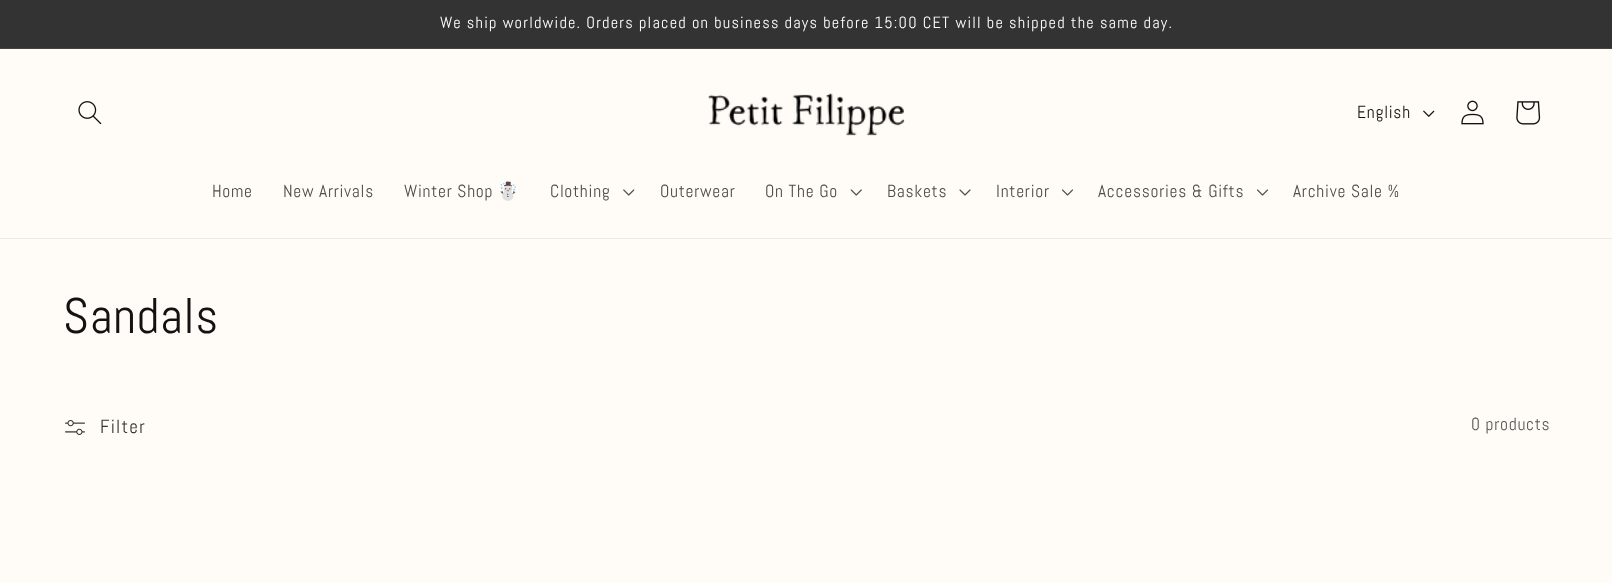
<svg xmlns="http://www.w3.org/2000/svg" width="1612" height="583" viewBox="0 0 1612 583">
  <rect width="100%" height="100%" fill="#fffcf7"/>
  <path d="M0 0h1612v48H0z" fill="#333"/>
  <path d="M0 48h1612v1H0z" fill="#434343"/>
  <path d="M0 238h1612v1H0z" fill="#ece9e5"/>
  <image x="78" y="101" width="24" height="24" href="img/1.png"/>
  <image x="708" y="93" width="197" height="43" href="img/2.png"/>
  <image x="1423" y="110" width="12" height="7" href="img/3.png"/>
  <image x="1461" y="100" width="23" height="25" href="img/4.png"/>
  <image x="1516" y="101" width="25" height="24" href="img/5.png"/>
  <image x="623" y="189" width="12" height="7" href="img/6.png"/>
  <image x="850" y="189" width="12" height="7" href="img/7.png"/>
  <image x="959" y="189" width="12" height="7" href="img/8.png"/>
  <image x="1062" y="189" width="11" height="7" href="img/9.png"/>
  <image x="1257" y="189" width="11" height="7" href="img/9.png"/>
  <image x="65" y="420" width="20" height="15" href="img/10.png"/>
  <text x="440" y="28" font-family="Abel" font-size="16.25" letter-spacing="1.25" fill="#fff">We ship worldwide. Orders placed on business days before 15:00 CET will be shipped the same day.</text>
  <text x="1357" y="118" font-family="Abel" font-size="17.5" letter-spacing="0.75" fill="#121212">English</text>
  <g font-family="Abel" font-size="17.5" letter-spacing="0.75" fill="#4d4d4b">
    <text x="212" y="197">Home</text>
    <text x="283" y="197">New Arrivals</text>
    <text x="404" y="197">Winter Shop</text>
  </g>
  <text x="497" y="197" font-family="Noto Color Emoji" font-size="17.5" letter-spacing="0.75" fill="#4d4d4b">☃️</text>
  <g font-family="Abel" font-size="17.5" letter-spacing="0.75" fill="#4d4d4b">
    <text x="550" y="197">Clothing</text>
    <text x="660" y="197">Outerwear</text>
    <text x="765" y="197">On The Go</text>
    <text x="887" y="197">Baskets</text>
    <text x="996" y="197">Interior</text>
    <text x="1098" y="197">Accessories &amp; Gifts</text>
    <text x="1293" y="197">Archive Sale %</text>
  </g>
  <text x="63" y="333" font-family="Abel" font-size="50" letter-spacing="0.75" fill="#121212">Sandals</text>
  <text x="100" y="433" font-family="Abel" font-size="19" letter-spacing="1.25" fill="#363534">Filter</text>
  <text x="1471" y="430" font-family="Abel" font-size="17.5" letter-spacing="0.75" fill="#595857">0 products</text>
</svg>
